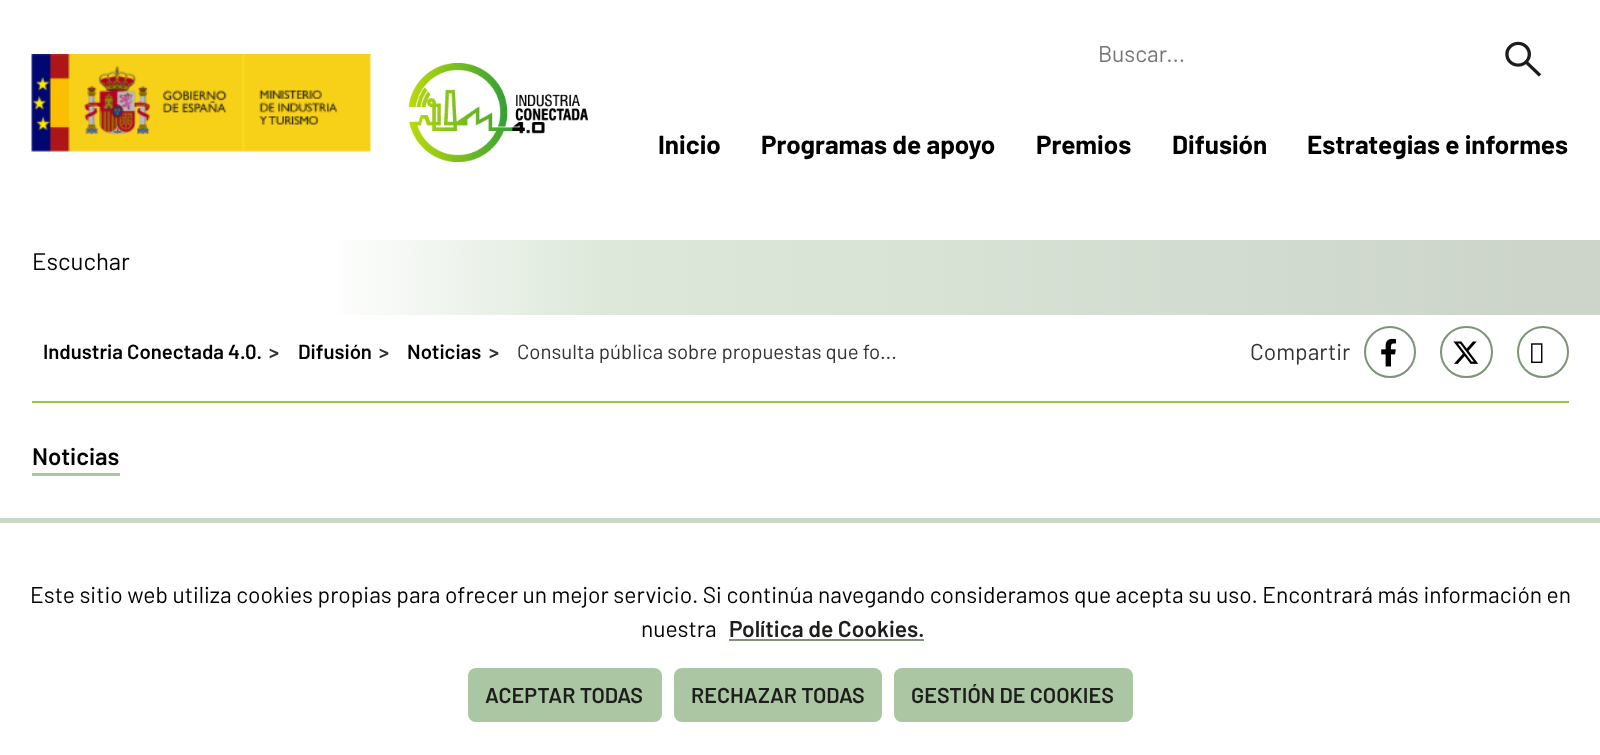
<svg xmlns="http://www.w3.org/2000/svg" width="1600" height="755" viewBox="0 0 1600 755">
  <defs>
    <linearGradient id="g1" gradientUnits="userSpaceOnUse" x1="320" y1="278" x2="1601" y2="277"><stop offset="0" stop-color="#fff"/><stop offset="0.22" stop-color="#dde8da"/><stop offset="1" stop-color="#ccd4c9"/></linearGradient>
  </defs>
  <rect width="100%" height="100%" fill="#fff"/>
  <image x="31" y="54" width="340" height="98" href="img/1.png"/>
  <image x="408" y="63" width="180" height="99" href="img/2.png"/>
  <image x="1505" y="41" width="37" height="36" href="img/3.png"/>
  <path d="M339 240h1261v75H339z" fill="url(#g1)"/>
  <path d="M32 401h1537v2H32z" fill="#97c93d"/>
  <circle cx="1390" cy="352" r="25" fill="none" stroke="#7e9378" stroke-width="2"/>
  <image x="1381" y="338" width="15" height="29" href="img/4.png"/>
  <rect x="1441" y="327" width="51" height="50" rx="25" fill="none" stroke="#7e9378" stroke-width="2"/>
  <image x="1453" y="341" width="26" height="23" href="img/5.png"/>
  <circle cx="1543" cy="352" r="25" fill="none" stroke="#7e9378" stroke-width="2"/>
  <image x="1531" y="343" width="12" height="20" href="img/6.png"/>
  <path d="M32 473h88v3H32z" fill="#aac6a2"/>
  <path d="M0 518h1600v5H0z" fill="#c8dac3"/>
  <path d="M729 639h195v2H729z" fill="#7e9378"/>
  <rect x="468" y="668" width="194" height="54" rx="8" fill="#aac6a2"/>
  <rect x="674" y="668" width="208" height="54" rx="8" fill="#aac6a2"/>
  <rect x="894" y="668" width="239" height="54" rx="8" fill="#aac6a2"/>
  <text x="1098" y="62" font-family="Barlow" font-size="22.8" fill="#757575">Buscar...</text>
  <g font-family="Barlow" font-size="26" font-weight="bold" fill="#000">
    <text x="658" y="154">Inicio</text>
    <text x="761" y="154">Programas de apoyo</text>
    <text x="1036" y="154">Premios</text>
    <text x="1172" y="154">Difusión</text>
    <text x="1307" y="154">Estrategias e informes</text>
  </g>
  <text x="32" y="270" font-family="Barlow" font-size="24" fill="#000">Escuchar</text>
  <text x="43" y="359" font-family="Barlow" font-size="20.4" font-weight="600" fill="#000">Industria Conectada 4.0.</text>
  <text x="269" y="359" font-family="Barlow" font-size="20.4" font-weight="600" fill="#333">&gt;</text>
  <text x="298" y="359" font-family="Barlow" font-size="20.4" font-weight="600" fill="#000">Difusión</text>
  <text x="379" y="359" font-family="Barlow" font-size="20.4" font-weight="600" fill="#333">&gt;</text>
  <text x="407" y="359" font-family="Barlow" font-size="20.4" font-weight="600" fill="#000">Noticias</text>
  <text x="489" y="359" font-family="Barlow" font-size="20.4" font-weight="600" fill="#333">&gt;</text>
  <text x="517" y="359" font-family="Barlow" font-size="20.4" fill="#333">Consulta pública sobre propuestas que fo...</text>
  <text x="1250" y="360" font-family="Barlow" font-size="22.8" fill="#333">Compartir</text>
  <text x="32" y="465" font-family="Barlow" font-size="24" font-weight="600" fill="#000">Noticias</text>
  <g font-family="Barlow" font-size="22.8" fill="#000">
    <text x="30" y="603">Este sitio web utiliza cookies propias para ofrecer un mejor servicio. Si continúa navegando consideramos que acepta su uso. Encontrará más información en</text>
    <text x="641" y="637">nuestra</text>
  </g>
  <text x="729" y="637" font-family="Barlow" font-size="22.8" font-weight="600" fill="#1d1d1b">Política de Cookies.</text>
  <g font-family="Barlow" font-size="21.5" font-weight="600" fill="#1d1d1b">
    <text x="485" y="703">ACEPTAR TODAS</text>
    <text x="691" y="703">RECHAZAR TODAS</text>
    <text x="911" y="703">GESTIÓN DE COOKIES</text>
  </g>
</svg>
